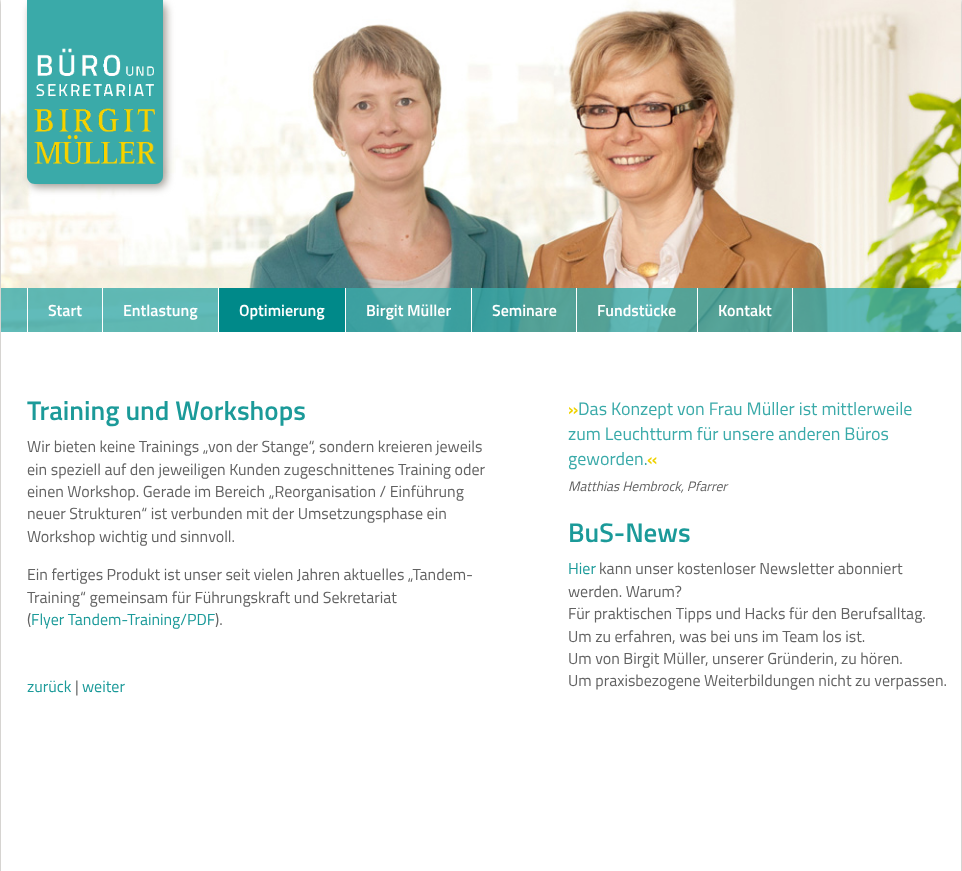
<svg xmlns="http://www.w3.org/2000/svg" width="962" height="871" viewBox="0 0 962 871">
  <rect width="100%" height="100%" fill="#fff"/>
  <path d="M1 0h960v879H1z" fill="#9f9a92" filter="blur(2.5px)"/>
  <image x="1" y="0" width="960" height="332" href="img/1.png"/>
  <rect x="30" y="3" width="136" height="184" rx="8" fill="#9f9a92" filter="blur(4px)"/>
  <path d="M27 0H163V176C163 180.5 159.5 184 155 184H35C30.5 184 27 180.5 27 176Z" fill="#3aaaa9"/>
  <image x="34" y="48" width="122" height="116" href="img/2.png"/>
  <path d="M1 288h960v44H1z" fill="#3aaaa9cc"/>
  <path d="M102 288h1v44H102z" fill="#fff"/>
  <path d="M27 288h1v44H27z" fill="#fff"/>
  <path d="M218 288h1v44H218z" fill="#fff"/>
  <path d="M219 288h126v44H219z" fill="#008989"/>
  <path d="M345 288h1v44H345z" fill="#fff"/>
  <path d="M471 288h1v44H471z" fill="#fff"/>
  <path d="M576 288h1v44H576z" fill="#fff"/>
  <path d="M697 288h1v44H697z" fill="#fff"/>
  <path d="M792 288h1v44H792z" fill="#fff"/>
  <path d="M1 332h960v539H1z" fill="#fff"/>
  <g font-family="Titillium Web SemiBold" font-size="16" font-weight="600" fill="#fff">
    <text x="48" y="316">Start</text>
    <text x="123" y="316">Entlastung</text>
    <text x="239" y="316">Optimierung</text>
    <text x="366" y="316">Birgit Müller</text>
    <text x="492" y="316">Seminare</text>
    <text x="597" y="316">Fundstücke</text>
    <text x="718" y="316">Kontakt</text>
  </g>
  <text x="27" y="420" font-family="Titillium Web SemiBold" font-size="27" font-weight="600" fill="#1b9a99">Training und Workshops</text>
  <g font-family="Titillium Web" font-size="16" fill="#626262">
    <text x="27" y="452">Wir bieten keine Trainings „von der Stange“, sondern kreieren jeweils</text>
    <text x="27" y="475">ein speziell auf den jeweiligen Kunden zugeschnittenes Training oder</text>
    <text x="27" y="497">einen Workshop. Gerade im Bereich „Reorganisation / Einführung</text>
    <text x="27" y="519">neuer Strukturen“ ist verbunden mit der Umsetzungsphase ein</text>
    <text x="27" y="542">Workshop wichtig und sinnvoll.</text>
    <text x="27" y="580">Ein fertiges Produkt ist unser seit vielen Jahren aktuelles „Tandem-</text>
    <text x="27" y="603">Training“ gemeinsam für Führungskraft und Sekretariat</text>
    <text x="27" y="625">(</text>
  </g>
  <text x="31" y="625" font-family="Titillium Web" font-size="16" fill="#1b9a99">Flyer Tandem-Training/PDF</text>
  <text x="215" y="625" font-family="Titillium Web" font-size="16" fill="#626262">).</text>
  <text x="27" y="692" font-family="Titillium Web" font-size="16" fill="#1b9a99">zurück</text>
  <text x="75" y="692" font-family="Titillium Web" font-size="16" fill="#626262">|</text>
  <text x="82" y="692" font-family="Titillium Web" font-size="16" fill="#1b9a99">weiter</text>
  <text x="568" y="415" font-family="Titillium Web SemiBold" font-size="18" font-weight="600" fill="#efd200">»</text>
  <g font-family="Titillium Web" font-size="18" fill="#3aaaa9">
    <text x="578" y="415">Das Konzept von Frau Müller ist mittlerweile</text>
    <text x="568" y="440">zum Leuchtturm für unsere anderen Büros</text>
    <text x="568" y="465">geworden.</text>
  </g>
  <text x="647" y="465" font-family="Titillium Web SemiBold" font-size="18" font-weight="600" fill="#efd200">«</text>
  <text x="568" y="491" font-family="Titillium Web" font-size="13.6" font-style="italic" fill="#626262">Matthias Hembrock, Pfarrer</text>
  <text x="568" y="542" font-family="Titillium Web SemiBold" font-size="27" font-weight="600" fill="#1b9a99">BuS-News</text>
  <text x="568" y="574" font-family="Titillium Web" font-size="16" fill="#1b9a99">Hier</text>
  <g font-family="Titillium Web" font-size="16" fill="#626262">
    <text x="599" y="574">kann unser kostenloser Newsletter abonniert</text>
    <text x="568" y="597">werden. Warum?</text>
    <text x="568" y="619">Für praktischen Tipps und Hacks für den Berufsalltag.</text>
    <text x="568" y="642">Um zu erfahren, was bei uns im Team los ist.</text>
    <text x="568" y="664">Um von Birgit Müller, unserer Gründerin, zu hören.</text>
    <text x="568" y="686">Um praxisbezogene Weiterbildungen nicht zu verpassen.</text>
  </g>
</svg>
